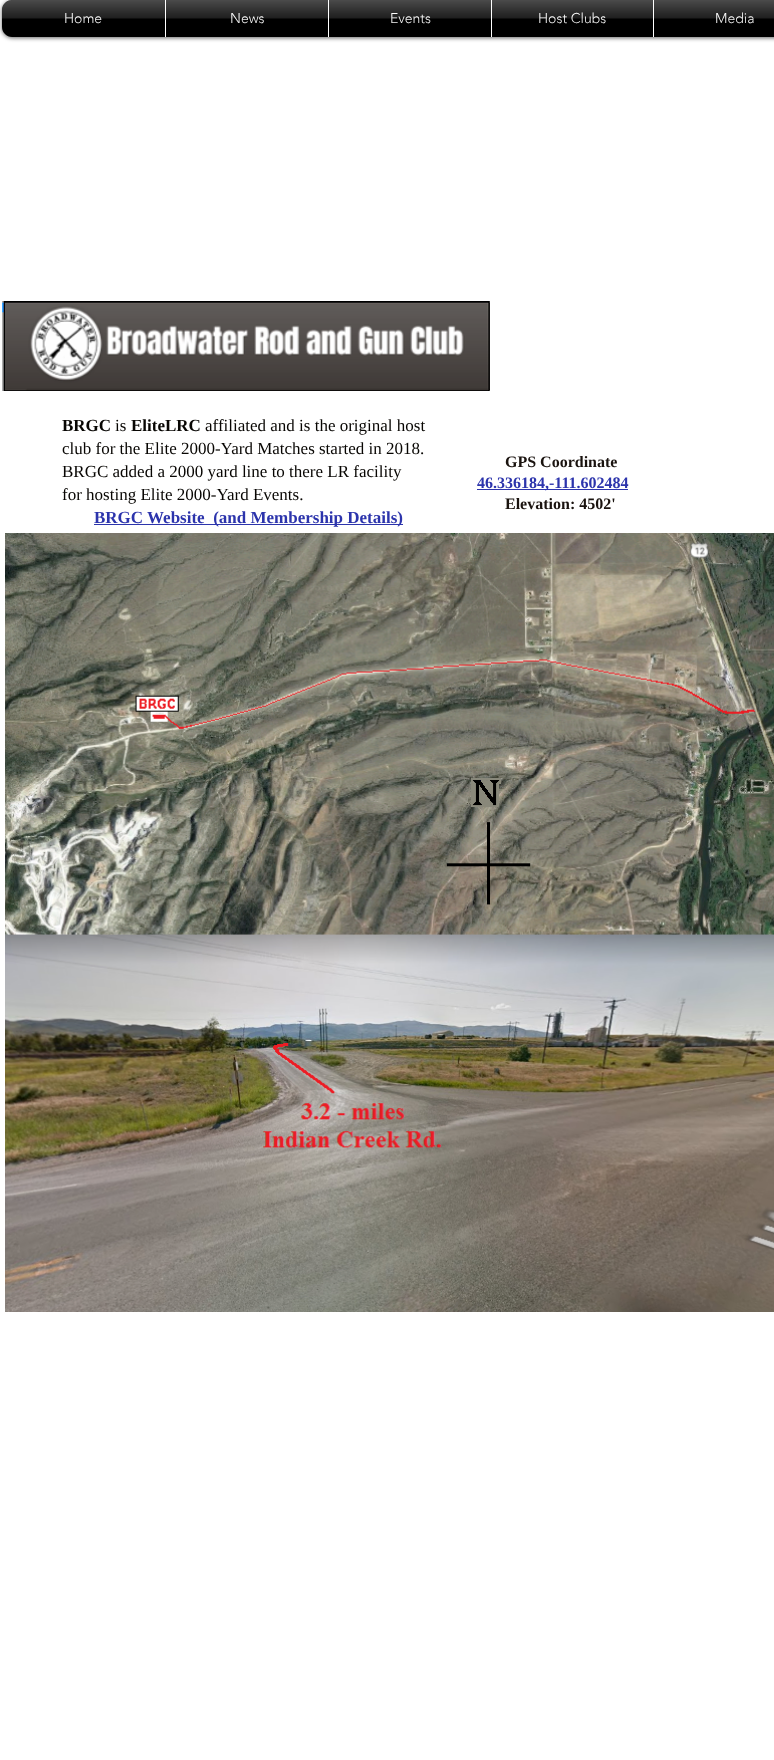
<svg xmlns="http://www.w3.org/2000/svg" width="774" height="1760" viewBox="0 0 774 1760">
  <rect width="100%" height="100%" fill="#fff"/>
  <rect x="2" y="1" width="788" height="37" rx="10" fill="#00000099" filter="blur(2px)"/>
  <image x="2" y="0" width="10" height="10" href="img/1.png"/>
  <path d="M12 0H165V37H12C6.5 37 2 32.5 2 27V10C2 4.5 6.5 0 12 0Z" fill="#000"/>
  <path d="M166 0h162v37H166z" fill="#000"/>
  <path d="M165 0h1v37H165z" fill="#fff"/>
  <path d="M329 0h162v37H329z" fill="#000"/>
  <path d="M328 0h1v37H328z" fill="#fff"/>
  <path d="M492 0h161v37H492z" fill="#000"/>
  <path d="M491 0h1v37H491z" fill="#fff"/>
  <path d="M654 0h120v37H654z" fill="#000"/>
  <path d="M653 0h1v37H653z" fill="#fff"/>
  <image x="2" y="301" width="488" height="90" href="img/7.png"/>
  <path d="M94 524h309v1H94z" fill="#2c34ac"/>
  <path d="M477 489h151v1H477z" fill="#2c34ac"/>
  <image x="5" y="533" width="769" height="779" href="img/8.png"/>
  <text x="64" y="23" font-family="'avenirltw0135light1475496'" font-size="14" font-weight="300" fill="#fff">Home</text>
  <image x="2" y="0" width="163" height="23" href="img/2.png"/>
  <text x="230" y="23" font-family="'avenirltw0135light1475496'" font-size="14" font-weight="300" fill="#fff">News</text>
  <image x="166" y="0" width="162" height="23" href="img/3.png"/>
  <text x="390" y="23" font-family="'avenirltw0135light1475496'" font-size="14" font-weight="300" fill="#fff">Events</text>
  <image x="329" y="0" width="162" height="23" href="img/4.png"/>
  <text x="538" y="23" font-family="'avenirltw0135light1475496'" font-size="14" font-weight="300" fill="#fff">Host Clubs</text>
  <image x="492" y="0" width="161" height="23" href="img/5.png"/>
  <text x="715" y="23" font-family="'avenirltw0135light1475496'" font-size="14" font-weight="300" fill="#fff">Media</text>
  <image x="654" y="0" width="120" height="23" href="img/6.png"/>
  <text x="62" y="431" font-family="Liberation Serif" font-size="17" font-weight="bold" fill="#080603">BRGC</text>
  <text x="115" y="431" font-family="Liberation Serif" font-size="17" fill="#080603">is</text>
  <text x="131" y="431" font-family="Liberation Serif" font-size="17" font-weight="bold" fill="#080603">EliteLRC</text>
  <g font-family="Liberation Serif" font-size="17" fill="#080603">
    <text x="205" y="431">affiliated and is the original host</text>
    <text x="62" y="454">club for the Elite 2000-Yard Matches started in 2018.</text>
    <text x="62" y="477">BRGC added a 2000 yard line to there LR facility</text>
    <text x="62" y="500">for hosting Elite 2000-Yard Events.</text>
  </g>
  <text x="94" y="523" font-family="Liberation Serif" font-size="17" font-weight="bold" fill="#2c34ac" xml:space="preserve">BRGC Website  (and Membership Details)</text>
  <text x="505" y="467" font-family="Liberation Serif" font-size="16" font-weight="bold" fill="#1a130f">GPS Coordinate</text>
  <text x="477" y="488" font-family="Liberation Serif" font-size="16" font-weight="bold" fill="#2c34ac">46.336184,-111.602484</text>
  <text x="505" y="509" font-family="Liberation Serif" font-size="16" font-weight="bold" fill="#1a130f">Elevation: 4502'</text>
</svg>
